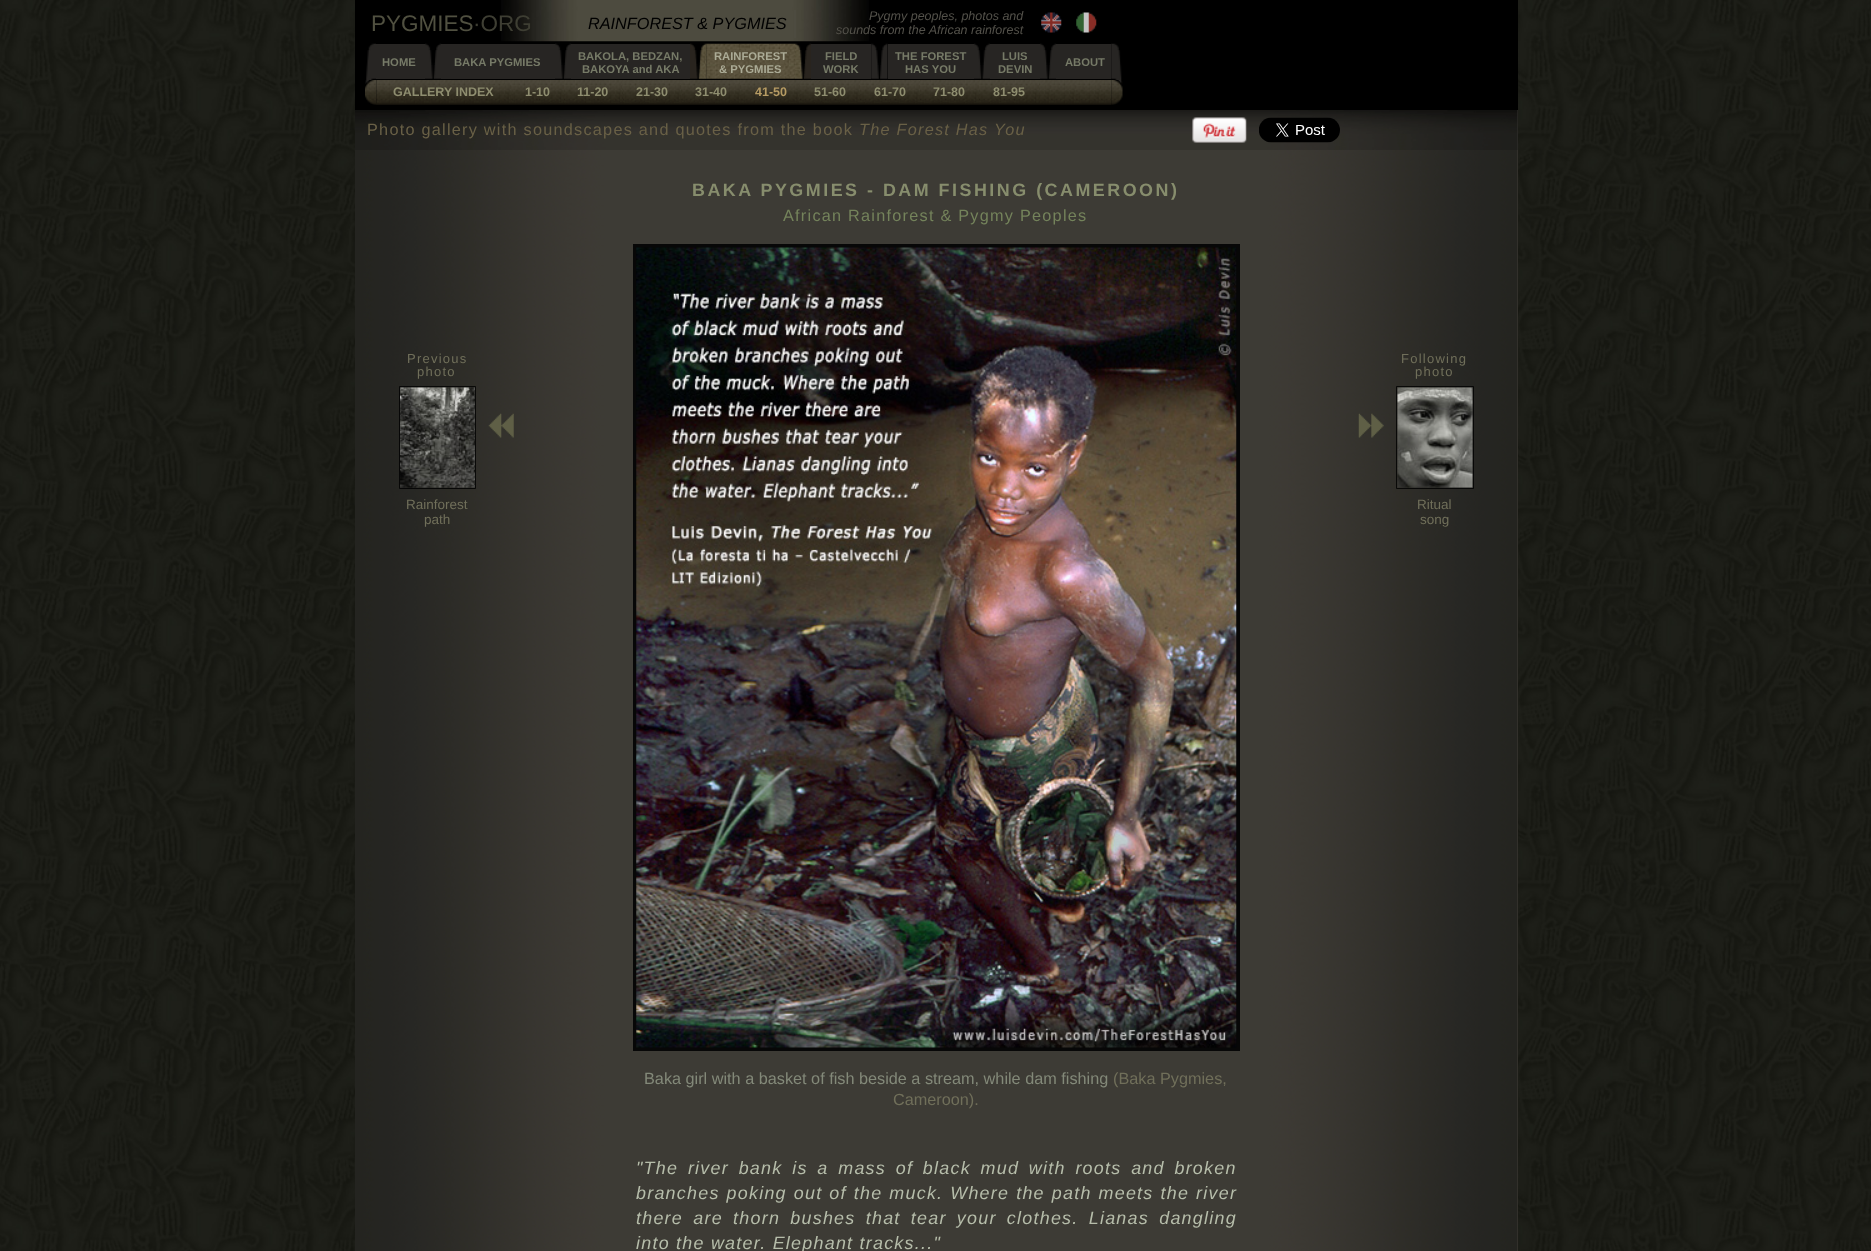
<svg xmlns="http://www.w3.org/2000/svg" width="1871" height="1251" viewBox="0 0 1871 1251">
  <rect width="100%" height="100%" fill="#fff"/>
  <image x="0" y="0" width="1871" height="1251" href="img/1.png"/>
  <path d="M1517 150h1v1101H1517z" fill="#403d37"/>
  <image x="355" y="150" width="1163" height="1101" href="img/2.png"/>
  <path d="M355 0h1163v110H355z" fill="#000"/>
  <image x="501" y="0" width="368" height="42" href="img/3.png"/>
  <image x="1041" y="12" width="21" height="21" href="img/4.png"/>
  <image x="1076" y="12" width="21" height="21" href="img/5.png"/>
  <path d="M794 10h2v28H794z" fill="#4d4b40"/>
  <image x="366" y="43" width="10" height="37" href="img/6.png"/>
  <image x="365" y="80" width="11" height="25" href="img/7.png"/>
  <path d="M376 44h49v35H376z" fill="#272523"/>
  <image x="425" y="43" width="17" height="36" href="img/8.png"/>
  <path d="M441 44h114v35H441z" fill="#272523"/>
  <image x="555" y="43" width="17" height="36" href="img/8.png"/>
  <path d="M571 44h119v35H571z" fill="#272523"/>
  <image x="690" y="43" width="17" height="36" href="img/9.png"/>
  <image x="706" y="43" width="89" height="36" href="img/10.png"/>
  <image x="795" y="43" width="17" height="36" href="img/11.png"/>
  <path d="M811 44h60v35H811z" fill="#272523"/>
  <image x="871" y="43" width="17" height="36" href="img/12.png"/>
  <path d="M888 44h86v35H888z" fill="#272523"/>
  <image x="974" y="43" width="16" height="36" href="img/13.png"/>
  <path d="M990 44h50v35H990z" fill="#272523"/>
  <image x="1040" y="43" width="17" height="36" href="img/8.png"/>
  <path d="M1056 44h55v35H1056z" fill="#272523"/>
  <image x="1111" y="43" width="11" height="37" href="img/14.png"/>
  <image x="376" y="80" width="736" height="25" href="img/16.png"/>
  <image x="1111" y="80" width="12" height="25" href="img/15.png"/>
  <image x="376" y="103" width="1" height="2" href="img/17.png"/>
  <image x="486" y="84" width="25" height="19" href="img/18.png"/>
  <image x="512" y="80" width="51" height="23" href="img/19.png"/>
  <image x="539" y="80" width="25" height="22" href="img/20.png"/>
  <image x="564" y="80" width="58" height="23" href="img/21.png"/>
  <image x="597" y="80" width="25" height="22" href="img/22.png"/>
  <image x="623" y="83" width="34" height="19" href="img/23.png"/>
  <image x="656" y="83" width="25" height="19" href="img/24.png"/>
  <image x="682" y="84" width="35" height="18" href="img/25.png"/>
  <image x="716" y="84" width="25" height="19" href="img/18.png"/>
  <image x="741" y="84" width="58" height="19" href="img/26.png"/>
  <image x="775" y="80" width="23" height="22" href="img/27.png"/>
  <image x="800" y="81" width="35" height="21" href="img/28.png"/>
  <image x="835" y="80" width="25" height="22" href="img/29.png"/>
  <image x="860" y="80" width="58" height="22" href="img/30.png"/>
  <image x="895" y="81" width="25" height="21" href="img/31.png"/>
  <image x="920" y="80" width="34" height="22" href="img/32.png"/>
  <image x="954" y="80" width="25" height="22" href="img/33.png"/>
  <image x="979" y="80" width="60" height="22" href="img/34.png"/>
  <image x="1014" y="84" width="25" height="19" href="img/35.png"/>
  <path d="M1517 110h1v40H1517z" fill="#34332e"/>
  <image x="355" y="110" width="1163" height="40" href="img/36.png"/>
  <image x="1192" y="117" width="55" height="26" href="img/37.png"/>
  <image x="1259" y="117" width="81" height="26" href="img/38.png"/>
  <path d="M635 246h603v803H635z" fill="none" stroke="#070707" stroke-width="4"/>
  <path d="M399.5 386.5h76v102H399.5z" fill="none" stroke="#000000cc"/>
  <image x="400" y="387" width="75" height="101" href="img/39.png"/>
  <image x="488" y="413" width="26" height="25" href="img/40.png"/>
  <image x="636" y="247" width="601" height="801" href="img/41.png"/>
  <image x="1358" y="413" width="26" height="25" href="img/42.png"/>
  <path d="M1396.5 386.5h77v102H1396.5z" fill="none" stroke="#000000cc"/>
  <image x="1397" y="387" width="76" height="101" href="img/43.png"/>
  <text x="371" y="31" font-family="Liberation Sans" font-size="22.5" fill="#505040">PYGMIES</text>
  <text x="473" y="31" font-family="Liberation Sans" font-size="22.5" fill="#3e3e33">·ORG</text>
  <g font-family="Liberation Sans" font-size="12.5" font-style="italic" fill="#53514a">
    <text x="869" y="20">Pygmy peoples, photos and</text>
    <text x="836" y="34">sounds from the African rainforest</text>
  </g>
  <text x="588" y="29" font-family="Liberation Sans" font-size="16.25" font-style="italic" fill="#000">RAINFOREST &amp; PYGMIES</text>
  <g font-family="Liberation Sans" font-size="11.25" font-weight="bold" fill="#767a67">
    <text x="382" y="66">HOME</text>
    <text x="454" y="66">BAKA PYGMIES</text>
    <text x="578" y="60">BAKOLA, BEDZAN,</text>
    <text x="582" y="73">BAKOYA and AKA</text>
  </g>
  <g font-family="Liberation Sans" font-size="11.25" font-weight="bold" fill="#abab96">
    <text x="714" y="60">RAINFOREST</text>
    <text x="719" y="73">&amp; PYGMIES</text>
  </g>
  <g font-family="Liberation Sans" font-size="11.25" font-weight="bold" fill="#767a67">
    <text x="825" y="60">FIELD</text>
    <text x="823" y="73">WORK</text>
    <text x="895" y="60">THE FOREST</text>
    <text x="905" y="73">HAS YOU</text>
    <text x="1002" y="60">LUIS</text>
    <text x="998" y="73">DEVIN</text>
    <text x="1065" y="66">ABOUT</text>
  </g>
  <g font-family="Liberation Sans" font-size="12.5" font-weight="bold" fill="#8e8d6f">
    <text x="393" y="96">GALLERY INDEX</text>
    <text x="525" y="96">1-10</text>
    <text x="577" y="96">11-20</text>
    <text x="636" y="96">21-30</text>
    <text x="695" y="96">31-40</text>
  </g>
  <text x="755" y="96" font-family="Liberation Sans" font-size="12.5" font-weight="bold" fill="#b69b63">41-50</text>
  <g font-family="Liberation Sans" font-size="12.5" font-weight="bold" fill="#8e8d6f">
    <text x="814" y="96">51-60</text>
    <text x="874" y="96">61-70</text>
    <text x="933" y="96">71-80</text>
    <text x="993" y="96">81-95</text>
  </g>
  <text x="367" y="135" font-family="Liberation Sans" font-size="16.25" letter-spacing="1.25" fill="#696046">Photo gallery with soundscapes and quotes from the book</text>
  <text x="859" y="135" font-family="Liberation Sans" font-size="16.25" font-style="italic" letter-spacing="1.25" fill="#696046">The Forest Has You</text>
  <text x="692" y="196" font-family="Liberation Sans" font-size="17.9" font-weight="bold" letter-spacing="2.5" fill="#878d6d">BAKA PYGMIES - DAM FISHING (CAMEROON)</text>
  <text x="783" y="221" font-family="Liberation Sans" font-size="16.25" letter-spacing="1.25" fill="#74835b">African Rainforest &amp; Pygmy Peoples</text>
  <g font-family="Liberation Sans" font-size="13" letter-spacing="1.25" fill="#706f5a">
    <text x="407" y="363">Previous</text>
    <text x="417" y="376">photo</text>
  </g>
  <g font-family="Liberation Sans" font-size="13.5" fill="#706f5a">
    <text x="406" y="509">Rainforest</text>
    <text x="424" y="524">path</text>
  </g>
  <g font-family="Liberation Sans" font-size="13" letter-spacing="1.25" fill="#706f5a">
    <text x="1401" y="363">Following</text>
    <text x="1415" y="376">photo</text>
  </g>
  <g font-family="Liberation Sans" font-size="13.5" fill="#706f5a">
    <text x="1417" y="509">Ritual</text>
    <text x="1420" y="524">song</text>
  </g>
  <text x="644" y="1084" font-family="Liberation Sans" font-size="16.25" fill="#838979">Baka girl with a basket of fish beside a stream, while dam fishing</text>
  <g font-family="Liberation Sans" font-size="16.25" fill="#706f5a">
    <text x="1113" y="1084">(Baka Pygmies,</text>
    <text x="893" y="1105">Cameroon).</text>
  </g>
  <g font-family="Liberation Sans" font-size="17.9" font-style="italic" letter-spacing="1.25" fill="#b6bdaa">
    <text x="636" y="1174" word-spacing="3.5">"The river bank is a mass of black mud with roots and broken</text>
    <text x="636" y="1199" word-spacing="0.75">branches poking out of the muck. Where the path meets the river</text>
    <text x="636" y="1224" word-spacing="4">there are thorn bushes that tear your clothes. Lianas dangling</text>
    <text x="636" y="1249">into the water. Elephant tracks..."</text>
  </g>
</svg>
